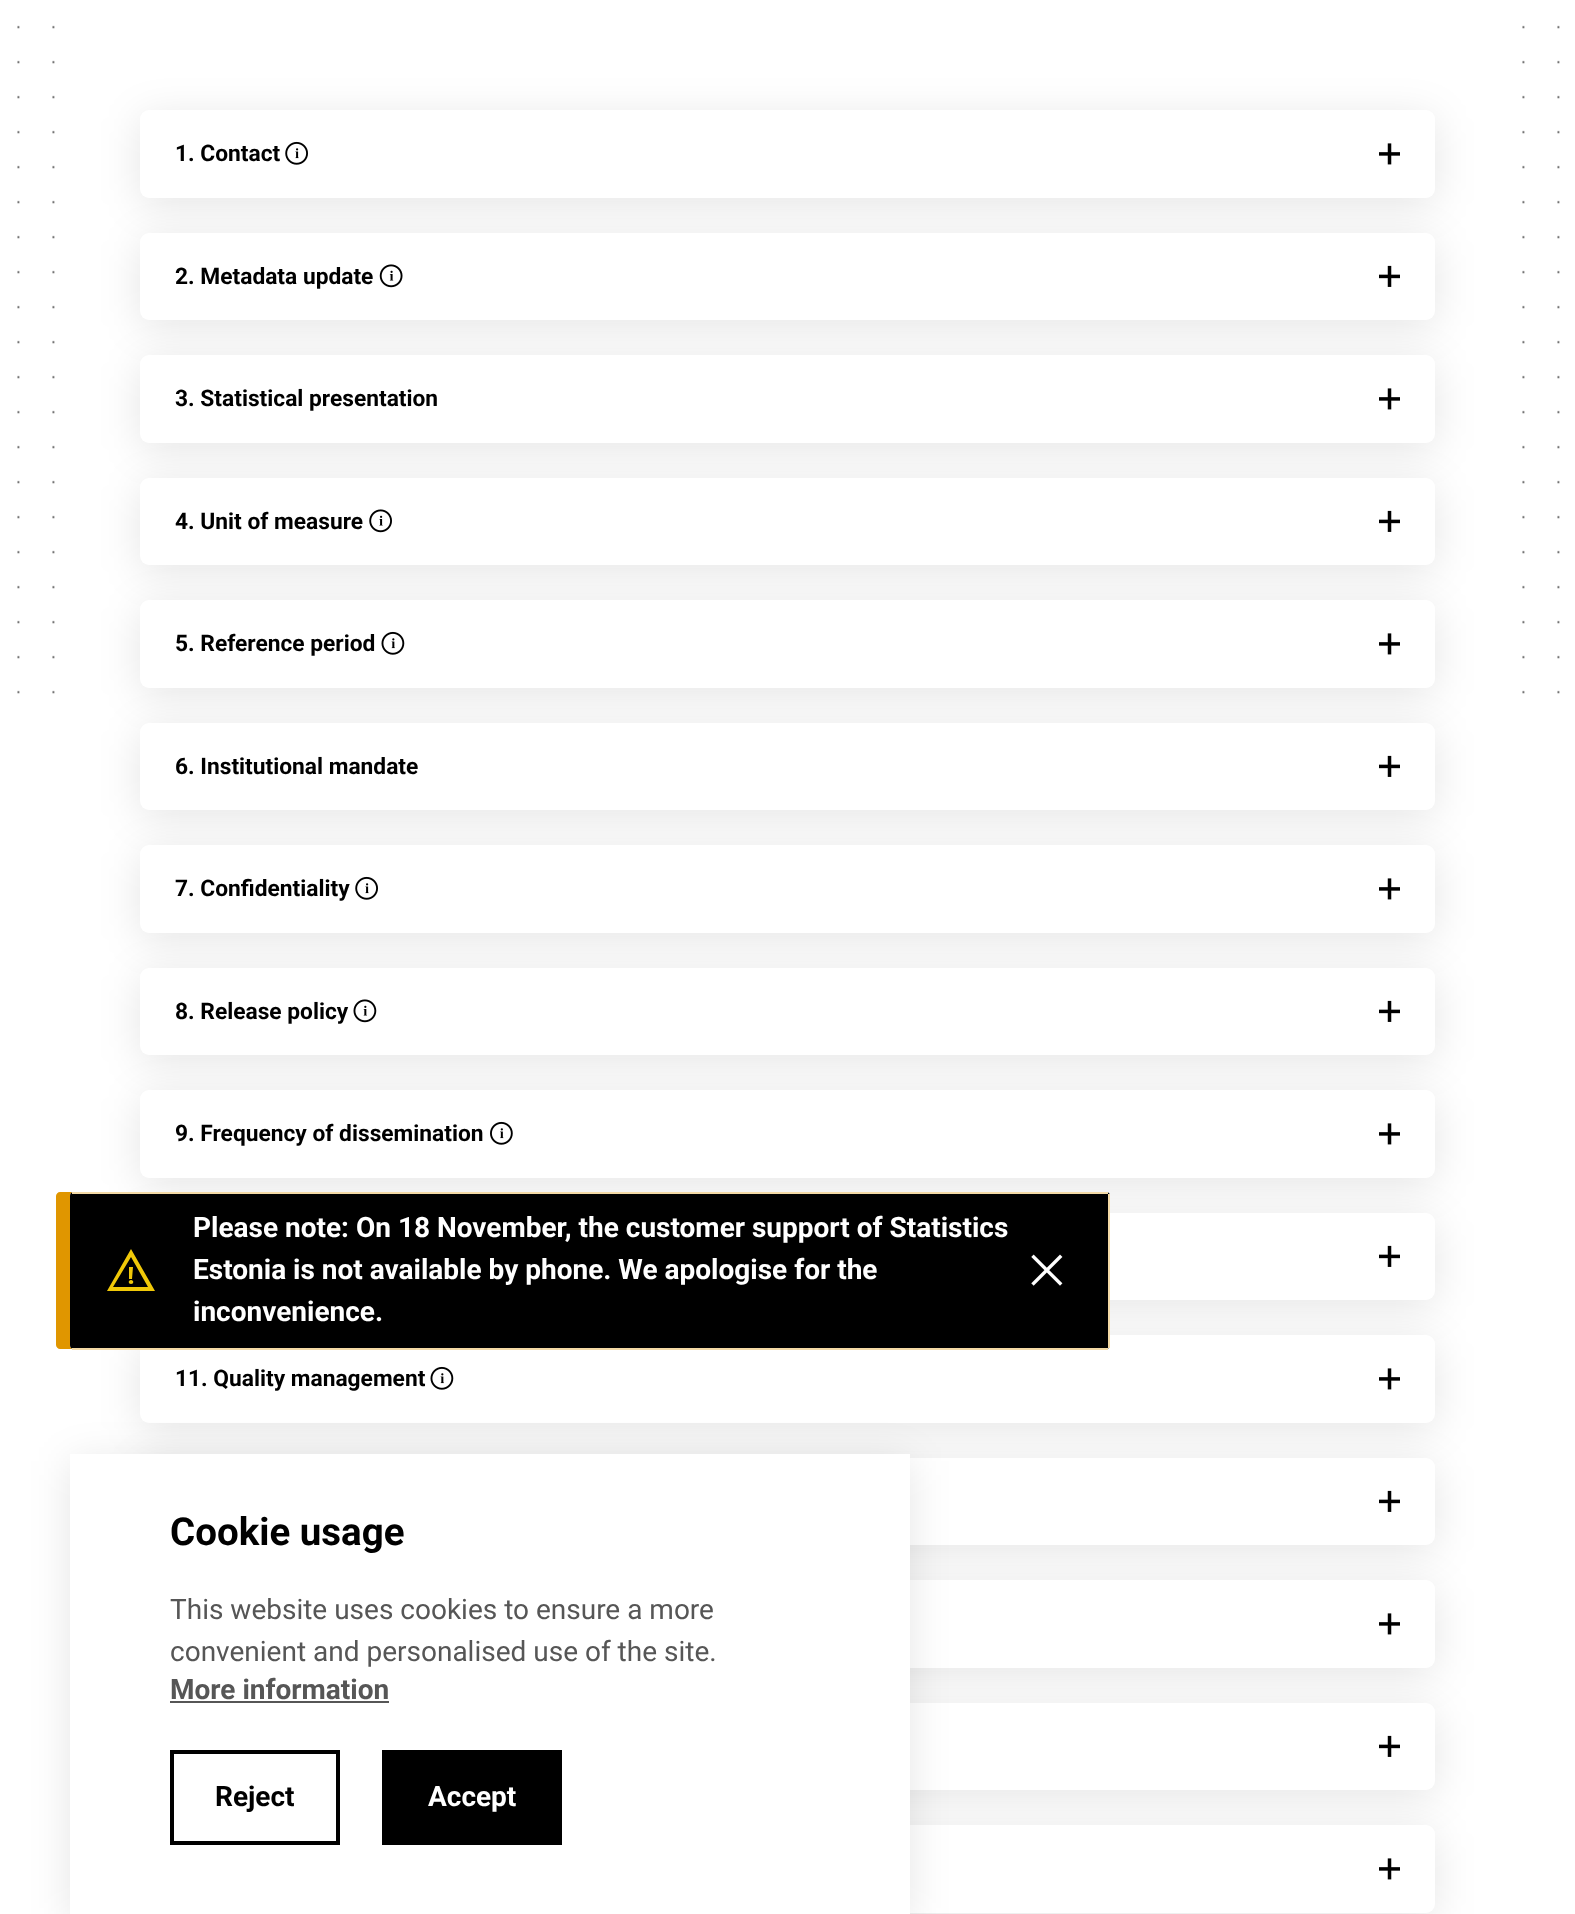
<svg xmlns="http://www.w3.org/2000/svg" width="1575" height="1914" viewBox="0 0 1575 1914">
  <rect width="100%" height="100%" fill="#fff"/>
  <image x="17" y="25" width="1543" height="669" href="img/1.png"/>
  <path d="M87 25h1403v669H87z" fill="#fff"/>
  <rect x="140" y="117" width="1295" height="88" rx="9" fill="#0000001a" filter="blur(21px)"/>
  <rect x="140" y="110" width="1295" height="88" rx="9" fill="#fff"/>
  <image x="285" y="141" width="23" height="24" href="img/2.png"/>
  <image x="1379" y="143" width="21" height="22" href="img/3.png"/>
  <rect x="140" y="240" width="1295" height="87" rx="9" fill="#0000001a" filter="blur(21px)"/>
  <rect x="140" y="233" width="1295" height="87" rx="9" fill="#fff"/>
  <image x="379" y="264" width="24" height="24" href="img/4.png"/>
  <image x="1379" y="265" width="21" height="22" href="img/5.png"/>
  <rect x="140" y="362" width="1295" height="88" rx="9" fill="#0000001a" filter="blur(21px)"/>
  <rect x="140" y="355" width="1295" height="88" rx="9" fill="#fff"/>
  <image x="1379" y="388" width="21" height="22" href="img/3.png"/>
  <rect x="140" y="485" width="1295" height="87" rx="9" fill="#0000001a" filter="blur(21px)"/>
  <rect x="140" y="478" width="1295" height="87" rx="9" fill="#fff"/>
  <image x="369" y="509" width="23" height="24" href="img/6.png"/>
  <image x="1379" y="510" width="21" height="22" href="img/5.png"/>
  <rect x="140" y="607" width="1295" height="88" rx="9" fill="#0000001a" filter="blur(21px)"/>
  <rect x="140" y="600" width="1295" height="88" rx="9" fill="#fff"/>
  <image x="381" y="631" width="24" height="24" href="img/7.png"/>
  <image x="1379" y="633" width="21" height="22" href="img/3.png"/>
  <rect x="140" y="730" width="1295" height="87" rx="9" fill="#0000001a" filter="blur(21px)"/>
  <rect x="140" y="723" width="1295" height="87" rx="9" fill="#fff"/>
  <image x="1379" y="755" width="21" height="22" href="img/5.png"/>
  <rect x="140" y="852" width="1295" height="88" rx="9" fill="#0000001a" filter="blur(21px)"/>
  <rect x="140" y="845" width="1295" height="88" rx="9" fill="#fff"/>
  <image x="355" y="876" width="23" height="24" href="img/2.png"/>
  <image x="1379" y="878" width="21" height="22" href="img/3.png"/>
  <rect x="140" y="975" width="1295" height="87" rx="9" fill="#0000001a" filter="blur(21px)"/>
  <rect x="140" y="968" width="1295" height="87" rx="9" fill="#fff"/>
  <image x="353" y="999" width="24" height="24" href="img/8.png"/>
  <image x="1379" y="1000" width="21" height="22" href="img/5.png"/>
  <rect x="140" y="1097" width="1295" height="88" rx="9" fill="#0000001a" filter="blur(21px)"/>
  <rect x="140" y="1090" width="1295" height="88" rx="9" fill="#fff"/>
  <image x="490" y="1121" width="23" height="24" href="img/9.png"/>
  <image x="1379" y="1123" width="21" height="22" href="img/3.png"/>
  <rect x="140" y="1220" width="1295" height="87" rx="9" fill="#0000001a" filter="blur(21px)"/>
  <rect x="140" y="1213" width="1295" height="87" rx="9" fill="#fff"/>
  <image x="1379" y="1245" width="21" height="22" href="img/5.png"/>
  <rect x="140" y="1342" width="1295" height="88" rx="9" fill="#0000001a" filter="blur(21px)"/>
  <rect x="140" y="1335" width="1295" height="88" rx="9" fill="#fff"/>
  <image x="430" y="1366" width="24" height="24" href="img/7.png"/>
  <image x="1379" y="1368" width="21" height="22" href="img/3.png"/>
  <rect x="140" y="1465" width="1295" height="87" rx="9" fill="#0000001a" filter="blur(21px)"/>
  <rect x="140" y="1458" width="1295" height="87" rx="9" fill="#fff"/>
  <image x="1379" y="1490" width="21" height="22" href="img/5.png"/>
  <rect x="140" y="1587" width="1295" height="88" rx="9" fill="#0000001a" filter="blur(21px)"/>
  <rect x="140" y="1580" width="1295" height="88" rx="9" fill="#fff"/>
  <image x="1379" y="1613" width="21" height="22" href="img/3.png"/>
  <rect x="140" y="1710" width="1295" height="87" rx="9" fill="#0000001a" filter="blur(21px)"/>
  <rect x="140" y="1703" width="1295" height="87" rx="9" fill="#fff"/>
  <image x="1379" y="1735" width="21" height="22" href="img/5.png"/>
  <rect x="140" y="1832" width="1295" height="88" rx="9" fill="#0000001a" filter="blur(21px)"/>
  <rect x="140" y="1825" width="1295" height="88" rx="9" fill="#fff"/>
  <image x="1379" y="1858" width="21" height="22" href="img/3.png"/>
  <path d="M60 1192C58 1192 56 1194 56 1196V1345C56 1347 58 1349 60 1349H72C71 1348 70 1347 70 1346V1195C70 1194 71 1193 72 1192Z" fill="#e09600"/>
  <rect x="70" y="1192" width="1040" height="157" rx="4" fill="#000"/>
  <path d="M72 1192h1036v2H72z" fill="#f4daa6"/>
  <path d="M1108 1194h2v154H1108z" fill="#f4daa6"/>
  <path d="M72 1348h1036v2H72z" fill="#f4daa6"/>
  <path d="M131 1249L155 1291H107ZM131 1257L113 1287H148ZM131 1280C134 1280 134 1284 131 1284C128 1284 128 1280 131 1280ZM133 1267L132 1279H129V1267Z" fill="#f0c808"/>
  <image x="1031" y="1254" width="32" height="32" href="img/10.png"/>
  <path d="M70 1461h840v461H70z" fill="#0000001a" filter="blur(21px)"/>
  <path d="M70 1454h840v460H70z" fill="#fff"/>
  <path d="M170 1701h219v2H170z" fill="#565656"/>
  <path d="M172 1752h166v91H172z" fill="none" stroke="#000" stroke-width="4"/>
  <path d="M382 1750h180v95H382z" fill="#000"/>
  <g font-family="Roboto" font-size="22.75" font-weight="bold" fill="#000">
    <text x="175" y="161">1. Contact</text>
    <text x="175" y="284">2. Metadata update</text>
    <text x="175" y="406">3. Statistical presentation</text>
    <text x="175" y="529">4. Unit of measure</text>
    <text x="175" y="651">5. Reference period</text>
    <text x="175" y="774">6. Institutional mandate</text>
    <text x="175" y="896">7. Confidentiality</text>
    <text x="175" y="1019">8. Release policy</text>
    <text x="175" y="1141">9. Frequency of dissemination</text>
    <text x="175" y="1386">11. Quality management</text>
  </g>
  <g font-family="Roboto" font-size="28" font-weight="bold" fill="#fff">
    <text x="193" y="1237">Please note: On 18 November, the customer support of Statistics</text>
    <text x="193" y="1279">Estonia is not available by phone. We apologise for the</text>
    <text x="193" y="1321">inconvenience.</text>
  </g>
  <text x="170" y="1545" font-family="Roboto" font-size="38.5" font-weight="bold" fill="#000">Cookie usage</text>
  <g font-family="Roboto" font-size="28" fill="#565656">
    <text x="170" y="1619">This website uses cookies to ensure a more</text>
    <text x="170" y="1661">convenient and personalised use of the site.</text>
  </g>
  <text x="170" y="1699" font-family="Roboto" font-size="28" font-weight="bold" fill="#565656">More information</text>
  <text x="215" y="1806" font-family="Roboto" font-size="28" font-weight="bold" fill="#000">Reject</text>
  <text x="428" y="1806" font-family="Roboto" font-size="28" font-weight="bold" fill="#fff">Accept</text>
</svg>
